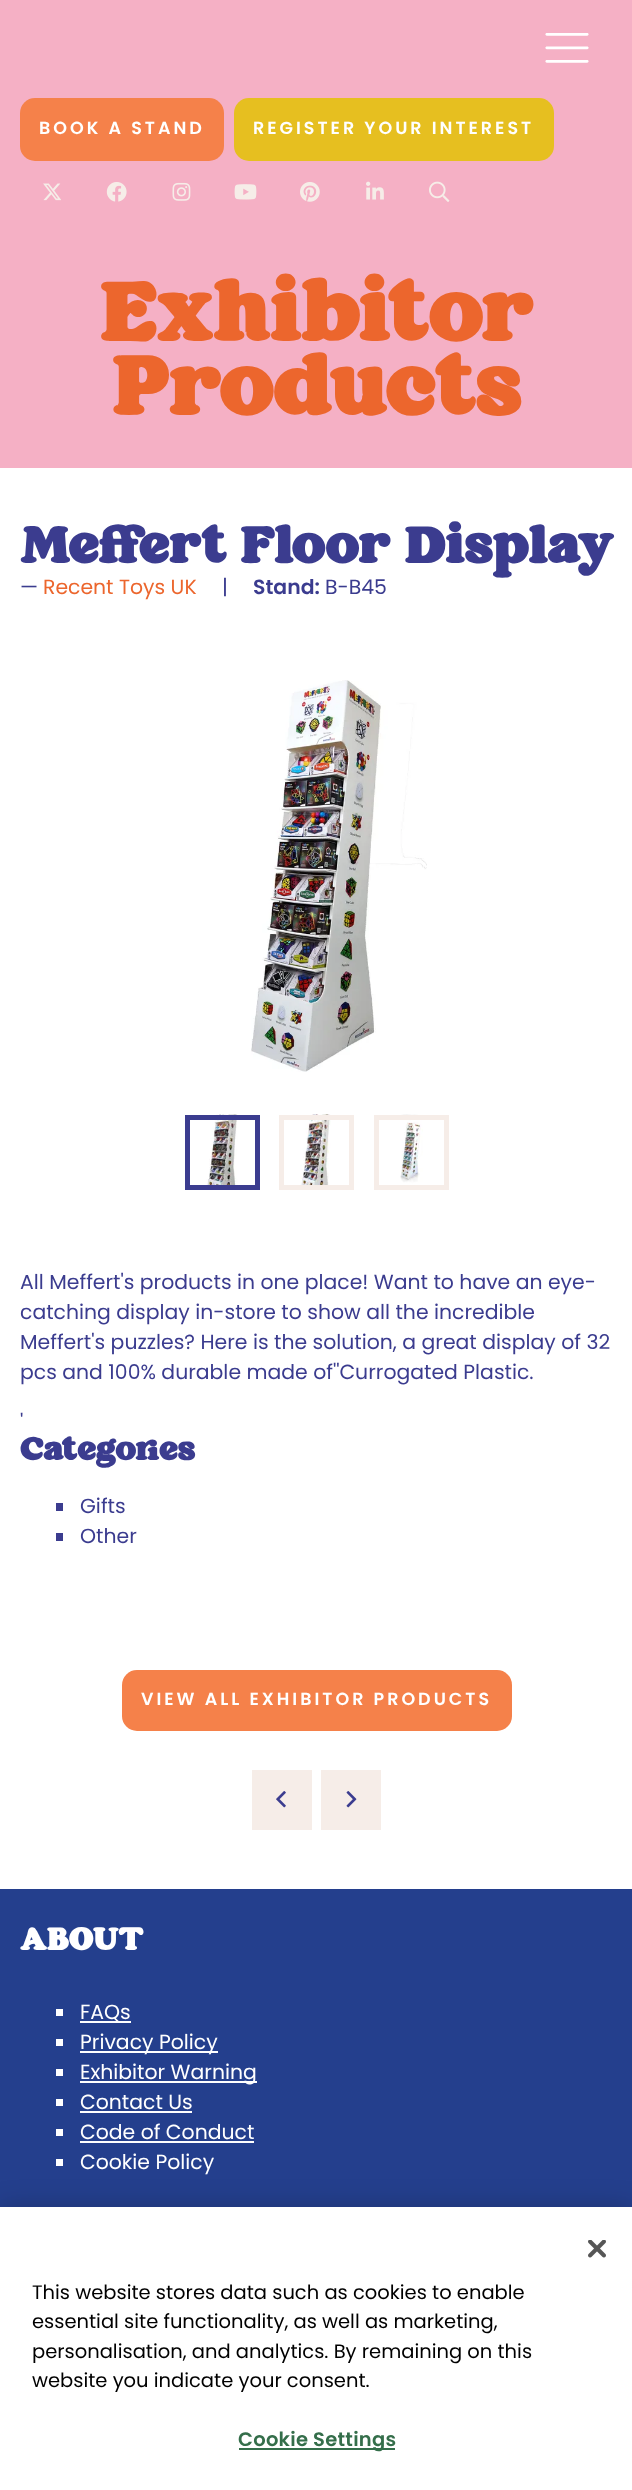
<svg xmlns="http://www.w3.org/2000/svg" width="632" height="2490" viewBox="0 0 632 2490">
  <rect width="100%" height="100%" fill="#fff"/>
  <path d="M0 0h632v468H0z" fill="#f5b0c5"/>
  <image x="545" y="33" width="44" height="30" href="img/1.png"/>
  <rect x="20" y="98" width="204" height="63" rx="15" fill="#f5814a"/>
  <rect x="234" y="98" width="320" height="63" rx="15" fill="#e6bf20"/>
  <image x="43" y="183" width="18" height="18" href="img/2.png"/>
  <image x="106" y="182" width="21" height="20" href="img/3.png"/>
  <image x="172" y="182" width="19" height="19" href="img/4.png"/>
  <image x="234" y="184" width="23" height="16" href="img/5.png"/>
  <image x="300" y="182" width="20" height="20" href="img/6.png"/>
  <image x="366" y="181" width="18" height="19" href="img/7.png"/>
  <image x="429" y="181" width="21" height="21" href="img/8.png"/>
  <image x="251" y="680" width="176" height="392" href="img/9.png"/>
  <image x="206" y="1114" width="32" height="71" href="img/10.png"/>
  <path d="M187.5 1117.5h70v70H187.5z" fill="none" stroke="#3b3c8f" stroke-width="5"/>
  <image x="300" y="1114" width="31" height="71" href="img/11.png"/>
  <path d="M281.5 1117.5h70v70H281.5z" fill="none" stroke="#f6ede8" stroke-width="5"/>
  <image x="400" y="1114" width="23" height="71" href="img/12.png"/>
  <path d="M376.5 1117.5h70v70H376.5z" fill="none" stroke="#f6ede8" stroke-width="5"/>
  <path d="M56 1503h7v8H56z" fill="#3b3c8f"/>
  <path d="M56 1533h7v8H56z" fill="#3b3c8f"/>
  <rect x="122" y="1670" width="390" height="61" rx="15" fill="#f5814a"/>
  <path d="M252 1770h60v60H252z" fill="#f6ede8"/>
  <image x="276" y="1791" width="10" height="17" href="img/13.png"/>
  <path d="M321 1770h60v60H321z" fill="#f6ede8"/>
  <image x="346" y="1791" width="11" height="17" href="img/14.png"/>
  <path d="M0 1889h632v318H0z" fill="#243f8d"/>
  <path d="M56 2009h7v7H56z" fill="#fff"/>
  <path d="M80 2021h51v2H80z" fill="#fff"/>
  <path d="M56 2039h7v7H56z" fill="#fff"/>
  <path d="M80 2051h138v2H80z" fill="#fff"/>
  <path d="M56 2069h7v7H56z" fill="#fff"/>
  <path d="M80 2081h177v2H80z" fill="#fff"/>
  <path d="M56 2099h7v7H56z" fill="#fff"/>
  <path d="M80 2111h112v2H80z" fill="#fff"/>
  <path d="M56 2129h7v7H56z" fill="#fff"/>
  <path d="M80 2141h174v2H80z" fill="#fff"/>
  <path d="M56 2159h7v7H56z" fill="#fff"/>
  <path d="M0 2207h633v283H0z" fill="#00000033" filter="blur(13.5px)"/>
  <path d="M0 2207h632v283H0z" fill="#fff"/>
  <image x="588" y="2240" width="18" height="18" href="img/15.png"/>
  <path d="M239 2448h156v2H239z" fill="#346e4a"/>
  <g font-family="Poppins" font-size="17.5" font-weight="600" letter-spacing="3" fill="#fff">
    <text x="39" y="134">BOOK A STAND</text>
    <text x="253" y="134">REGISTER YOUR INTEREST</text>
  </g>
  <g font-family="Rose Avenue" font-size="61.25" font-weight="bold" fill="#ec662d">
    <text x="100" y="341">Exhibitor</text>
    <text x="112" y="415">Products</text>
  </g>
  <text x="20" y="563" font-family="Rose Avenue" font-size="37.9" font-weight="bold" fill="#3b3c8f">Meffert Floor Display</text>
  <text x="20" y="594" font-family="Poppins" font-size="20.4" fill="#3b3c8f">—</text>
  <text x="43" y="594" font-family="Poppins" font-size="20.4" fill="#ec662d">Recent Toys UK</text>
  <text x="222" y="594" font-family="Poppins" font-size="20.4" fill="#3b3c8f">|</text>
  <text x="253" y="594" font-family="Poppins" font-size="20.4" font-weight="600" fill="#3b3c8f">Stand:</text>
  <g font-family="Poppins" font-size="20.4" fill="#3b3c8f">
    <text x="325" y="594">B-B45</text>
    <text x="20" y="1289">All Meffert's products in one place! Want to have an eye-</text>
    <text x="20" y="1319">catching display in-store to show all the incredible</text>
    <text x="20" y="1349">Meffert's puzzles? Here is the solution, a great display of 32</text>
    <text x="20" y="1379">pcs and 100% durable made of''Currogated Plastic.</text>
    <text x="20" y="1429">'</text>
  </g>
  <text x="20" y="1460" font-family="Rose Avenue" font-size="23.25" font-weight="bold" fill="#3b3c8f">Categories</text>
  <g font-family="Poppins" font-size="20.4" fill="#3b3c8f">
    <text x="80" y="1513">Gifts</text>
    <text x="80" y="1543">Other</text>
  </g>
  <text x="141" y="1705" font-family="Poppins" font-size="17.5" font-weight="600" letter-spacing="3" fill="#fff">VIEW ALL EXHIBITOR PRODUCTS</text>
  <text x="20" y="1950" font-family="Rose Avenue" font-size="23.25" font-weight="bold" fill="#fff">ABOUT</text>
  <g font-family="Poppins" font-size="20.4" fill="#fff">
    <text x="80" y="2019">FAQs</text>
    <text x="80" y="2049">Privacy Policy</text>
    <text x="80" y="2079">Exhibitor Warning</text>
    <text x="80" y="2109">Contact Us</text>
    <text x="80" y="2139">Code of Conduct</text>
    <text x="80" y="2169">Cookie Policy</text>
  </g>
  <g font-family="Poppins" font-size="19.5" fill="#000">
    <text x="32" y="2299">This website stores data such as cookies to enable</text>
    <text x="32" y="2328">essential site functionality, as well as marketing,</text>
    <text x="32" y="2358">personalisation, and analytics. By remaining on this</text>
    <text x="32" y="2387">website you indicate your consent.</text>
  </g>
  <text x="238" y="2446" font-family="Poppins" font-size="19.5" font-weight="600" letter-spacing="0.25" fill="#346e4a">Cookie Settings</text>
</svg>
